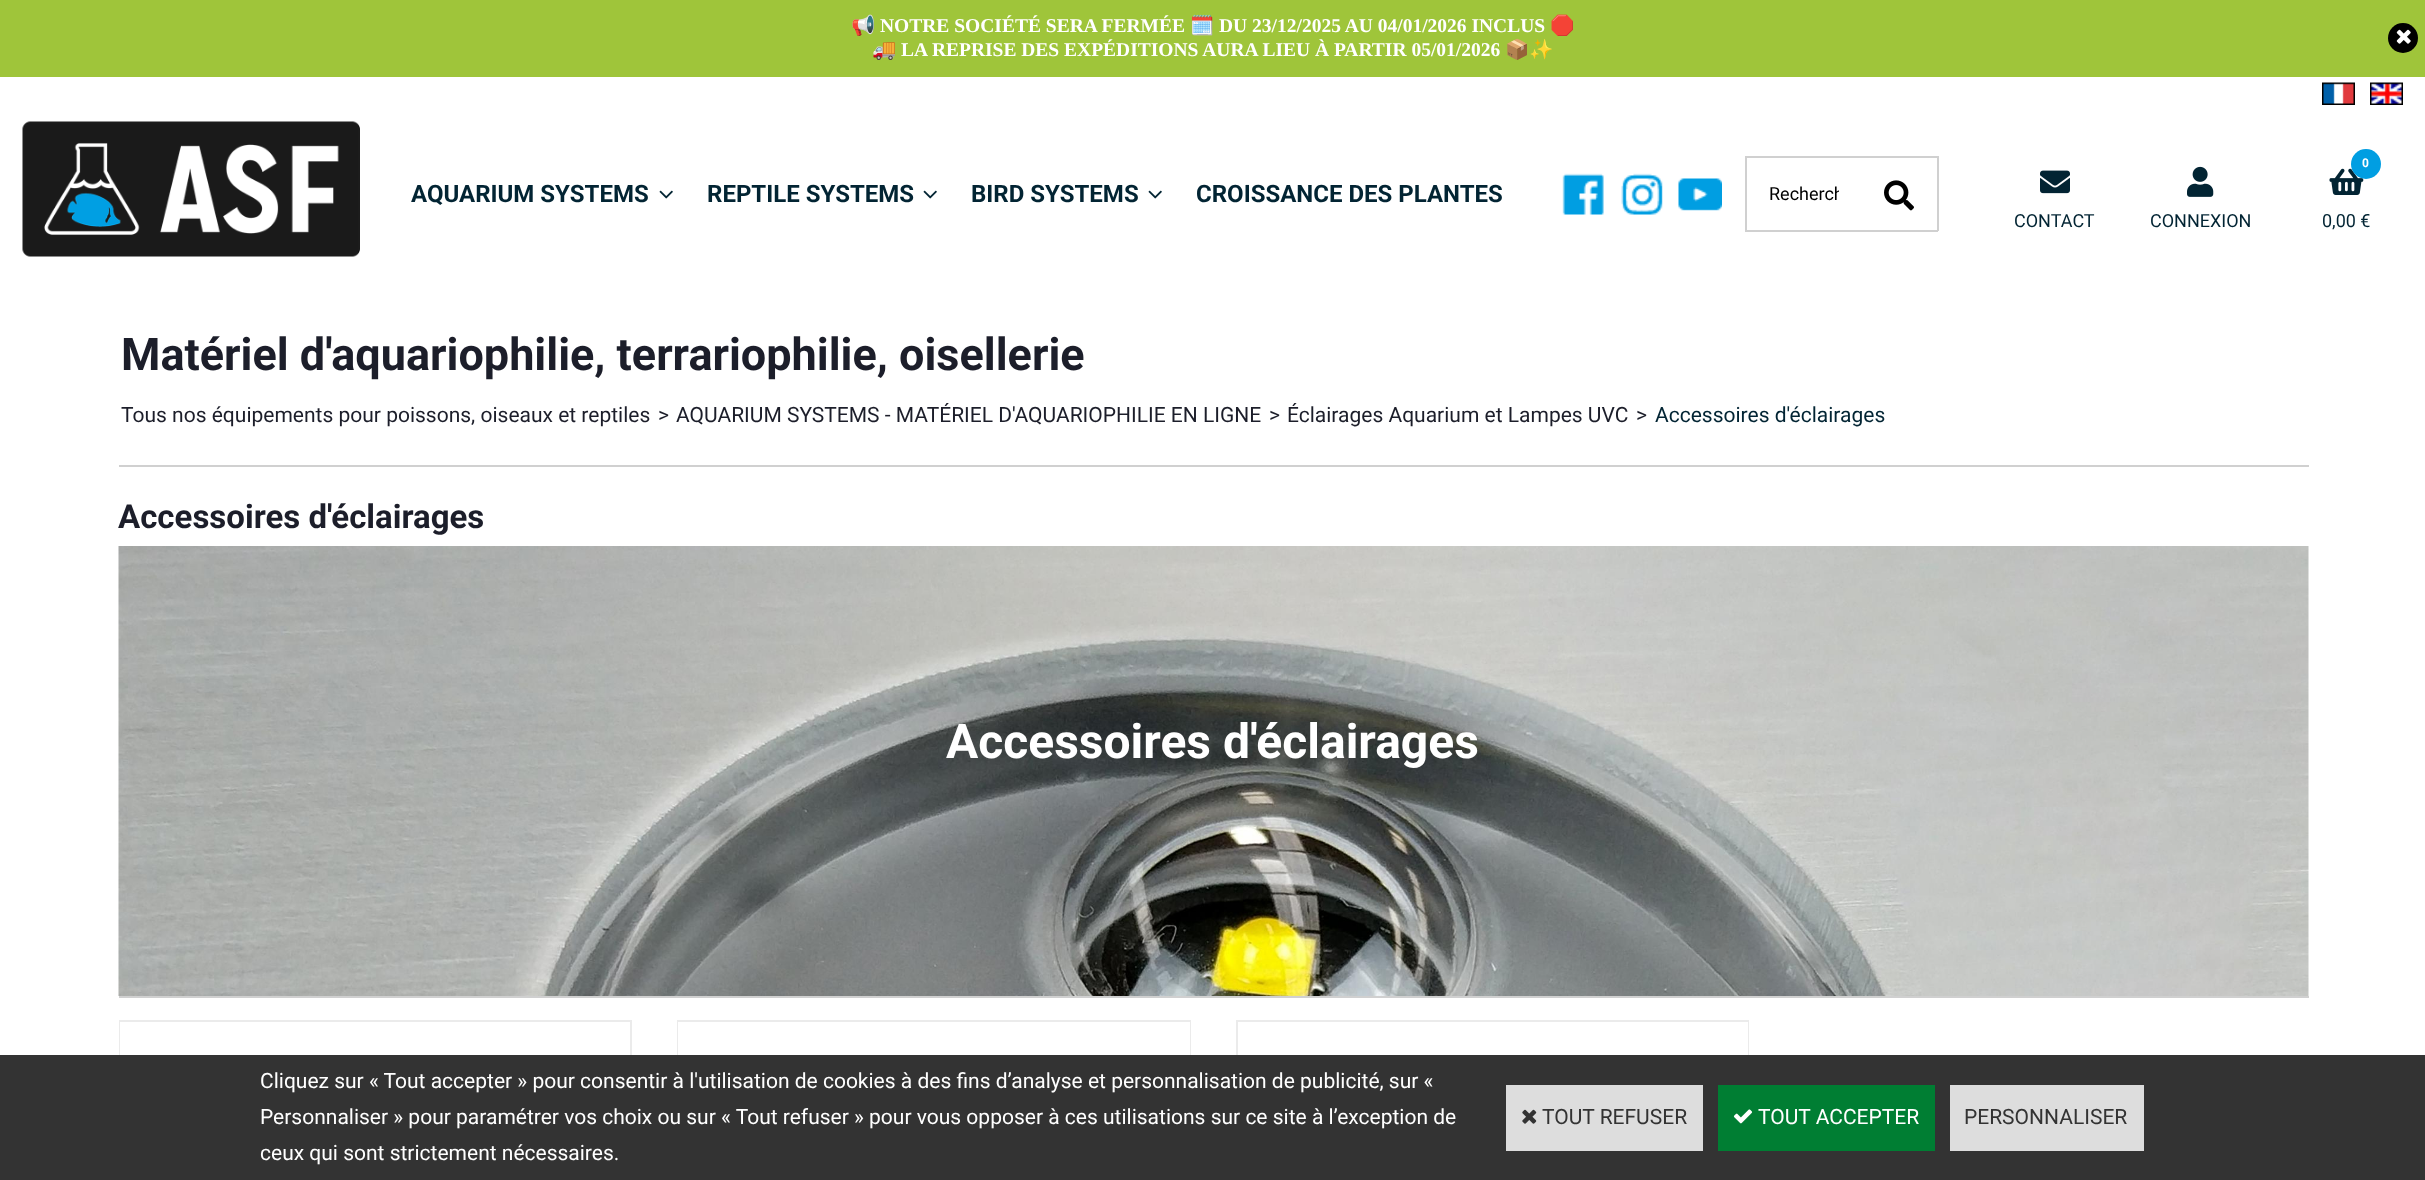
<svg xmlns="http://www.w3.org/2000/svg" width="2425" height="1180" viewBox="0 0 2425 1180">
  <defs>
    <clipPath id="clip1"><path d="M1769 158h70v72H1769z"/></clipPath>
  </defs>
  <rect width="100%" height="100%" fill="#fff"/>
  <path d="M0 0h2425v77H0z" fill="#9fc53a"/>
  <circle cx="2403" cy="38" r="15" fill="#000"/>
  <image x="2396" y="29" width="15" height="15" href="img/1.png"/>
  <image x="2322" y="82" width="33" height="23" href="img/2.png"/>
  <image x="2370" y="82" width="33" height="23" href="img/3.png"/>
  <image x="22" y="121" width="338" height="136" href="img/4.png"/>
  <image x="659" y="190" width="14" height="9" href="img/5.png"/>
  <image x="923" y="190" width="14" height="9" href="img/5.png"/>
  <image x="1148" y="190" width="14" height="9" href="img/5.png"/>
  <image x="1562" y="173" width="42" height="42" href="img/6.png"/>
  <image x="1621" y="173" width="42" height="42" href="img/7.png"/>
  <image x="1678" y="178" width="44" height="33" href="img/8.png"/>
  <path d="M1745 156h193v2H1745z" fill="#d0d0d0"/>
  <path d="M1745 230h117v2H1745z" fill="#d0d0d0"/>
  <path d="M1745 156h2v75H1745z" fill="#d0d0d0"/>
  <path d="M1937 156h2v75H1937z" fill="#d0d0d0"/>
  <path d="M1862 230h76v2H1862z" fill="#d0d0d0"/>
  <image x="1884" y="180" width="30" height="31" href="img/9.png"/>
  <image x="2329" y="168" width="35" height="27" href="img/10.png"/>
  <circle cx="2366" cy="164" r="15" fill="#009ee2"/>
  <image x="2040" y="170" width="30" height="24" href="img/11.png"/>
  <image x="2187" y="166" width="27" height="31" href="img/12.png"/>
  <path d="M119 465h2190v2H119z" fill="#d0d0d0"/>
  <path d="M119 996h2190v2H119z" fill="#d0d0d0"/>
  <image x="118" y="546" width="2191" height="450" href="img/13.png"/>
  <path d="M120 1021h511v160H120z" fill="none" stroke="#ebebeb" stroke-width="2"/>
  <path d="M120 1022h1v33H120z" fill="#fff"/>
  <path d="M678 1021h512v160H678z" fill="none" stroke="#ebebeb" stroke-width="2"/>
  <path d="M678 1022h512v33H678z" fill="#fff"/>
  <path d="M1237 1021h511v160H1237z" fill="none" stroke="#ebebeb" stroke-width="2"/>
  <path d="M1747 1022h1v33H1747z" fill="#fff"/>
  <path d="M0 1055h2425v125H0z" fill="#333"/>
  <path d="M1506 1085h197v66H1506z" fill="#ddd"/>
  <image x="1522" y="1109" width="15" height="15" href="img/14.png"/>
  <path d="M1718 1085h217v66H1718z" fill="#007e33"/>
  <image x="1733" y="1109" width="20" height="15" href="img/15.png"/>
  <path d="M1950 1085h194v66H1950z" fill="#ddd"/>
  <text x="851" y="32" font-family="Noto Color Emoji" font-size="19.5" font-weight="bold" fill="#fff">📢</text>
  <text x="880" y="32" font-family="Liberation Serif" font-size="19.5" font-weight="bold" fill="#fff">NOTRE SOCIÉTÉ SERA FERMÉE</text>
  <text x="1190" y="32" font-family="Noto Color Emoji" font-size="19.5" font-weight="bold" fill="#fff">🗓️</text>
  <text x="1219" y="32" font-family="Liberation Serif" font-size="19.5" font-weight="bold" fill="#fff">DU 23/12/2025 AU 04/01/2026 INCLUS</text>
  <g font-family="Noto Color Emoji" font-size="19.5" font-weight="bold" fill="#fff">
    <text x="1550" y="32">🛑</text>
    <text x="872" y="56">🚚</text>
  </g>
  <text x="901" y="56" font-family="Liberation Serif" font-size="19.5" font-weight="bold" fill="#fff">LA REPRISE DES EXPÉDITIONS AURA LIEU À PARTIR 05/01/2026</text>
  <text x="1505" y="56" font-family="Noto Color Emoji" font-size="19.5" font-weight="bold" fill="#fff">📦✨</text>
  <g font-family="Roboto" font-size="24" font-weight="bold" fill="#022433">
    <text x="411" y="202">AQUARIUM SYSTEMS</text>
    <text x="707" y="202">REPTILE SYSTEMS</text>
    <text x="971" y="202">BIRD SYSTEMS</text>
    <text x="1196" y="202">CROISSANCE DES PLANTES</text>
  </g>
  <g clip-path="url(#clip1)">
    <text x="1769" y="200" font-family="Roboto" font-size="18" fill="#000">Recherch</text>
  </g>
  <text x="2362" y="167" font-family="Roboto" font-size="12" font-weight="bold" fill="#fff">0</text>
  <g font-family="Roboto" font-size="18" fill="#022433">
    <text x="2322" y="227">0,00 €</text>
    <text x="2014" y="227">CONTACT</text>
    <text x="2150" y="227">CONNEXION</text>
  </g>
  <text x="121" y="370" font-family="Roboto" font-size="45" font-weight="bold" fill="#1c1e2a">Matériel d'aquariophilie, terrariophilie, oisellerie</text>
  <g font-family="Roboto" font-size="21" fill="#1c1e2a">
    <text x="121" y="422">Tous nos équipements pour poissons, oiseaux et reptiles</text>
    <text x="658" y="422">&gt;</text>
    <text x="676" y="422">AQUARIUM SYSTEMS - MATÉRIEL D'AQUARIOPHILIE EN LIGNE</text>
    <text x="1269" y="422">&gt;</text>
    <text x="1287" y="422">Éclairages Aquarium et Lampes UVC</text>
    <text x="1636" y="422">&gt;</text>
  </g>
  <text x="1655" y="422" font-family="Roboto" font-size="21" fill="#022433">Accessoires d'éclairages</text>
  <text x="118" y="528" font-family="Roboto" font-size="33" font-weight="bold" fill="#1c1e2a">Accessoires d'éclairages</text>
  <text x="946" y="758" font-family="Roboto" font-size="48" font-weight="bold" fill="#fff">Accessoires d'éclairages</text>
  <g font-family="Roboto" font-size="21" fill="#fff">
    <text x="260" y="1088">Cliquez sur « Tout accepter » pour consentir à l'utilisation de cookies à des fins d’analyse et personnalisation de publicité, sur «</text>
    <text x="260" y="1124">Personnaliser » pour paramétrer vos choix ou sur « Tout refuser » pour vous opposer à ces utilisations sur ce site à l’exception de</text>
    <text x="260" y="1160">ceux qui sont strictement nécessaires.</text>
  </g>
  <text x="1542" y="1124" font-family="Roboto" font-size="21" fill="#333">TOUT REFUSER</text>
  <text x="1758" y="1124" font-family="Roboto" font-size="21" fill="#fff">TOUT ACCEPTER</text>
  <text x="1964" y="1124" font-family="Roboto" font-size="21" fill="#333">PERSONNALISER</text>
</svg>
